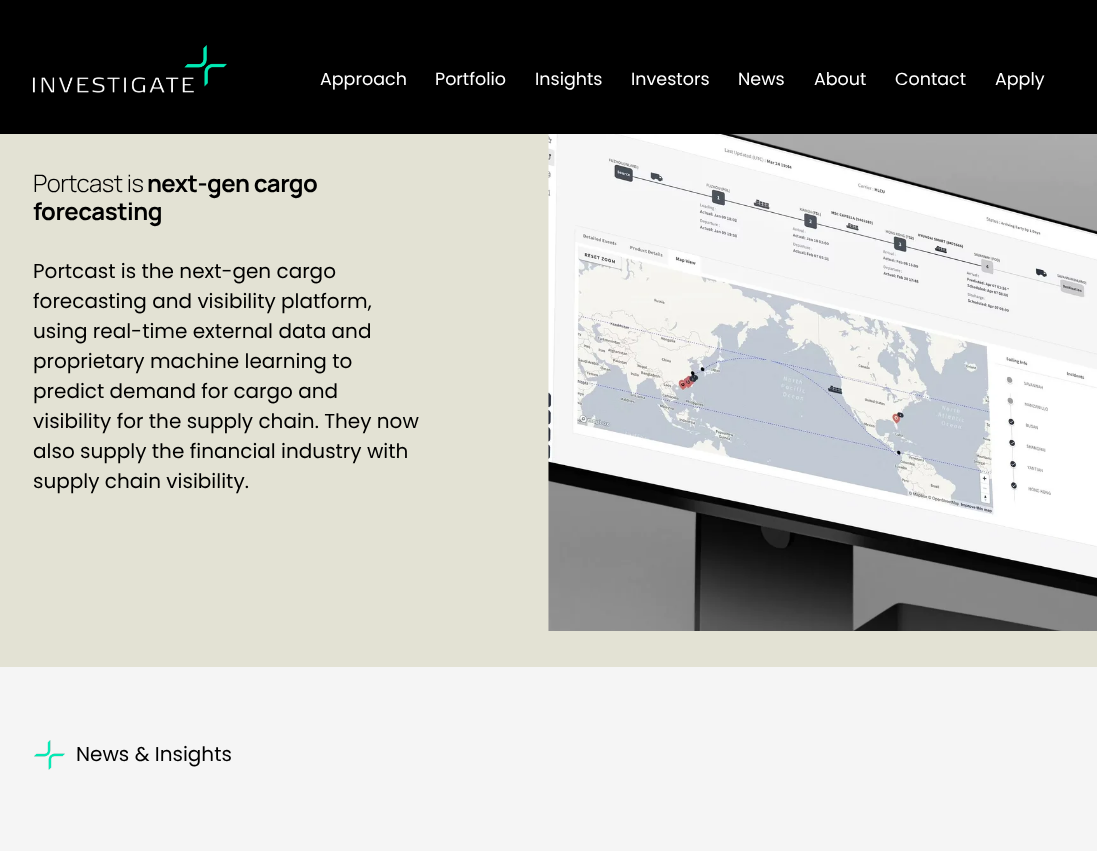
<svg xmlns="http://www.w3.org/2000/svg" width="1097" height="851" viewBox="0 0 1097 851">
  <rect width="100%" height="100%" fill="#f5f5f5"/>
  <path d="M0 0h1097v134H0z" fill="#000"/>
  <image x="32" y="45" width="195" height="48" href="img/1.png"/>
  <path d="M0 134h1097v533H0z" fill="#e3e2d4"/>
  <image x="548" y="134" width="549" height="497" href="img/2.png"/>
  <image x="34" y="740" width="31" height="30" href="img/3.png"/>
  <g font-family="Poppins" font-size="17.5" fill="#fff">
    <text x="320" y="85">Approach</text>
    <text x="435" y="85">Portfolio</text>
    <text x="535" y="85">Insights</text>
    <text x="631" y="85">Investors</text>
    <text x="738" y="85">News</text>
    <text x="814" y="85">About</text>
    <text x="895" y="85">Contact</text>
    <text x="995" y="85">Apply</text>
  </g>
  <text x="33" y="192" font-family="Manrope" font-size="24" font-weight="300" letter-spacing="-0.5" fill="#000">Portcast is</text>
  <g font-family="Manrope" font-size="24" font-weight="bold" letter-spacing="-0.5" fill="#000">
    <text x="147" y="192">next-gen cargo</text>
    <text x="33" y="220">forecasting</text>
  </g>
  <g font-family="Poppins" font-size="20" fill="#000">
    <text x="33" y="278">Portcast is the next-gen cargo</text>
    <text x="33" y="308">forecasting and visibility platform,</text>
    <text x="33" y="338">using real-time external data and</text>
    <text x="33" y="368">proprietary machine learning to</text>
    <text x="33" y="398">predict demand for cargo and</text>
    <text x="33" y="428">visibility for the supply chain. They now</text>
    <text x="33" y="458">also supply the financial industry with</text>
    <text x="33" y="488">supply chain visibility.</text>
    <text x="76" y="761">News &amp; Insights</text>
  </g>
</svg>
